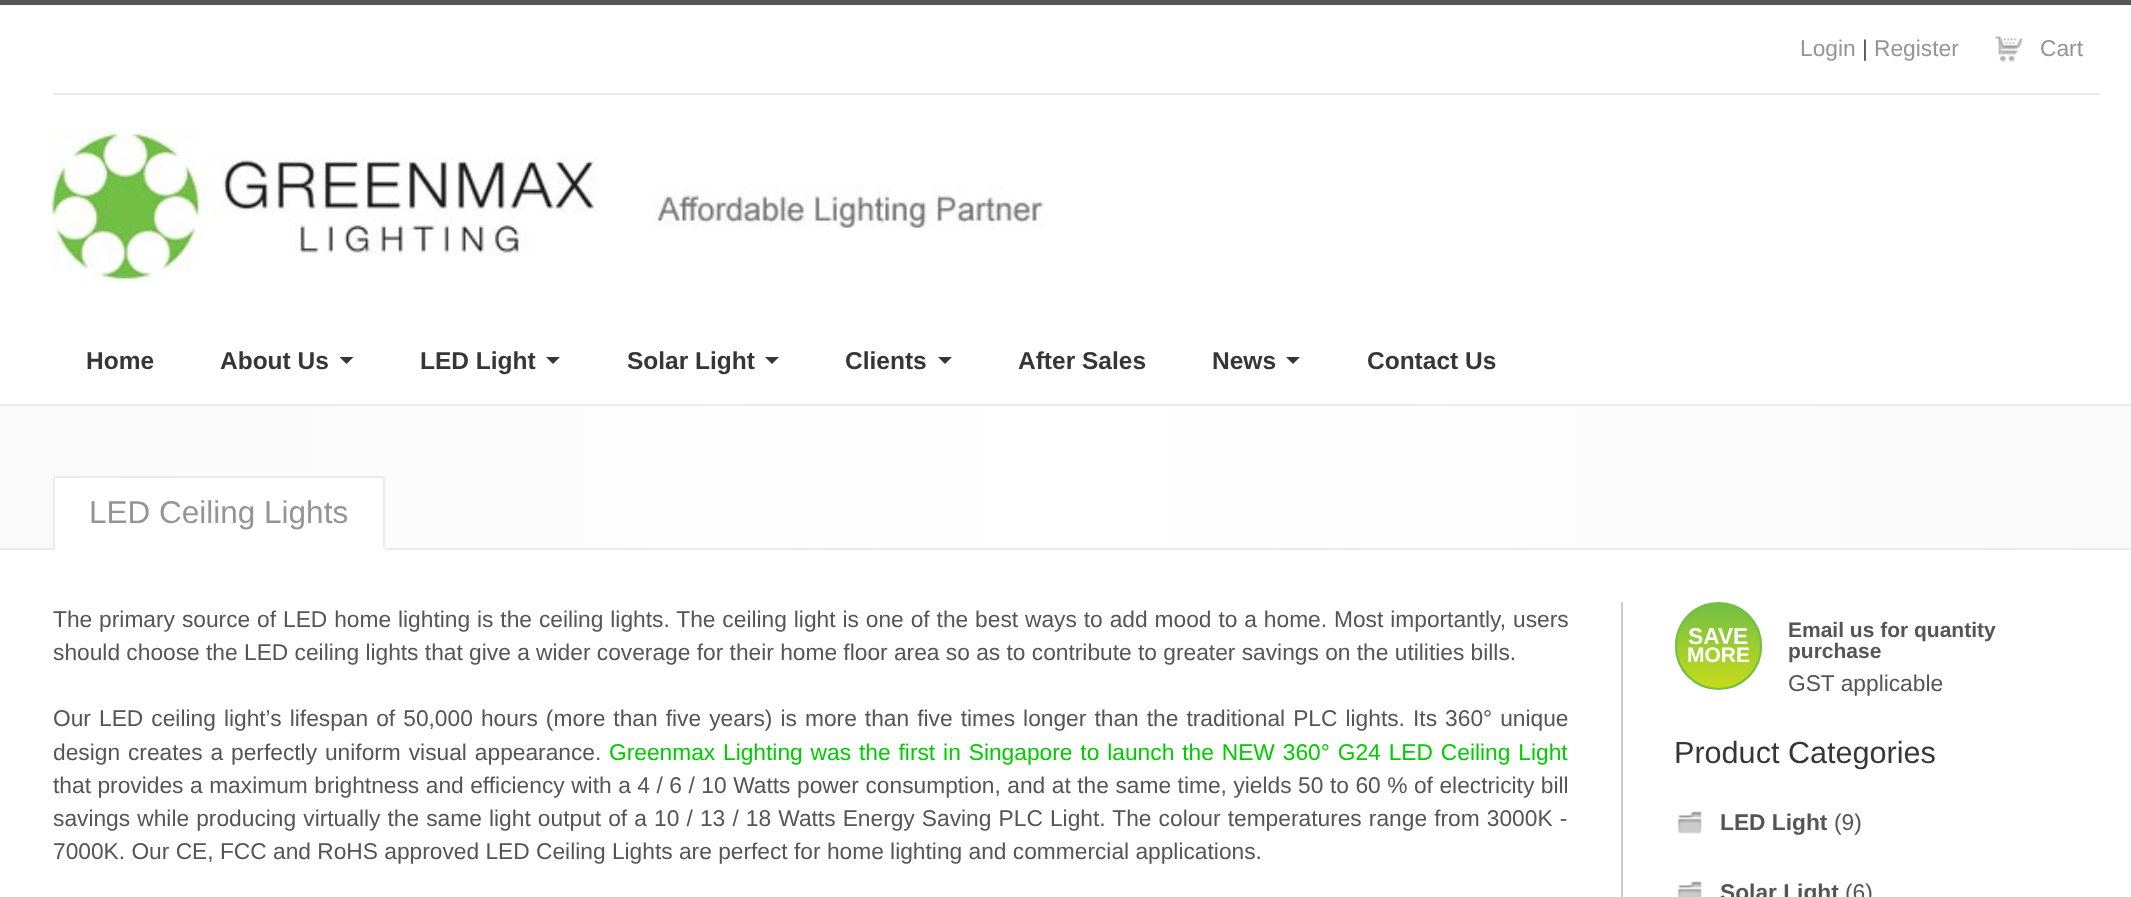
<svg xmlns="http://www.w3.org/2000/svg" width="2131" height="897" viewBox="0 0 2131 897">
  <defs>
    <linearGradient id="g1" gradientUnits="userSpaceOnUse" x1="0" y1="477" x2="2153" y2="477"><stop offset="0" stop-color="#fafafa"/><stop offset="0.5" stop-color="#fff"/><stop offset="1" stop-color="#fafafa"/></linearGradient>
    <clipPath id="clip1"><rect x="1675" y="602" width="87" height="88" rx="43.5"/></clipPath>
    <linearGradient id="g2" gradientUnits="userSpaceOnUse" x1="1719" y1="604" x2="1719" y2="688"><stop offset="0" stop-color="#71bf45"/><stop offset="1" stop-color="#c7da1a"/></linearGradient>
  </defs>
  <rect width="100%" height="100%" fill="#fff"/>
  <path d="M0 0h2131v5H0z" fill="#555"/>
  <image x="1995" y="36" width="28" height="26" href="img/1.png"/>
  <path d="M53 93h2047v2H53z" fill="#ebebeb"/>
  <image x="52" y="129" width="545" height="153" href="img/2.png"/>
  <image x="653" y="186" width="392" height="42" href="img/3.png"/>
  <path d="M339.5 357H353.5L346.5 364Z" fill="#363636"/>
  <path d="M546 357H560L553 364Z" fill="#363636"/>
  <path d="M765 357H779L772 364Z" fill="#363636"/>
  <path d="M938 357H952L945 364Z" fill="#363636"/>
  <path d="M1286 357H1300L1293 364Z" fill="#363636"/>
  <path d="M0 406h2131v142H0z" fill="url(#g1)"/>
  <path d="M0 404h2131v2H0z" fill="#ebebeb"/>
  <path d="M0 548h2131v2H0z" fill="#ebebeb"/>
  <path d="M55 478h328v70H55z" fill="#fff"/>
  <path d="M53 476h332v2H53z" fill="#ebebeb"/>
  <path d="M383 476h2v74H383z" fill="#ebebeb"/>
  <path d="M53 548h332v2H53z" fill="#fff"/>
  <path d="M53 476h2v74H53z" fill="#ebebeb"/>
  <path d="M1621 602h2v295H1621z" fill="#ccc"/>
  <g clip-path="url(#clip1)">
    <path d="M1675 604h87v84H1675z" fill="url(#g2)"/>
  </g>
  <rect x="1676" y="603" width="85" height="86" rx="42.5" fill="none" stroke="#71bf45" stroke-width="2"/>
  <image x="1677" y="811" width="25" height="23" href="img/4.png"/>
  <image x="1677" y="881" width="25" height="16" href="img/5.png"/>
  <text x="1800" y="56" font-family="Liberation Sans" font-size="22.75" fill="#959595">Login</text>
  <text x="1862" y="56" font-family="Liberation Sans" font-size="22.75" fill="#555">|</text>
  <g font-family="Liberation Sans" font-size="22.75" fill="#959595">
    <text x="1874" y="56">Register</text>
    <text x="2040" y="56">Cart</text>
  </g>
  <g font-family="Liberation Sans" font-size="24.5" font-weight="bold" fill="#363636">
    <text x="86" y="369">Home</text>
    <text x="220" y="369">About Us</text>
    <text x="420" y="369">LED Light</text>
    <text x="627" y="369">Solar Light</text>
    <text x="845" y="369">Clients</text>
    <text x="1018" y="369">After Sales</text>
    <text x="1212" y="369">News</text>
    <text x="1367" y="369">Contact Us</text>
  </g>
  <text x="89" y="523" font-family="Liberation Sans" font-size="31.5" fill="#959595">LED Ceiling Lights</text>
  <g font-family="Liberation Sans" font-size="22.75" fill="#555">
    <text x="53" y="627" word-spacing="0.6">The primary source of LED home lighting is the ceiling lights. The ceiling light is one of the best ways to add mood to a home. Most importantly, users</text>
    <text x="53" y="660">should choose the LED ceiling lights that give a wider coverage for their home floor area so as to contribute to greater savings on the utilities bills.</text>
    <text x="53" y="726" word-spacing="1.75">Our LED ceiling light’s lifespan of 50,000 hours (more than five years) is more than five times longer than the traditional PLC lights. Its 360° unique</text>
    <text x="53" y="760" word-spacing="1.6">design creates a perfectly uniform visual appearance.</text>
  </g>
  <g font-family="Liberation Sans" font-size="22.75" fill="#0c0">
    <text x="609" y="760">Greenmax</text>
    <text x="723" y="760" word-spacing="1.6">Lighting was the first in Singapore to launch the NEW 360° G24 LED Ceiling Light</text>
  </g>
  <g font-family="Liberation Sans" font-size="22.75" fill="#555">
    <text x="53" y="793" word-spacing="0.2">that provides a maximum brightness and efficiency with a 4 / 6 / 10 Watts power consumption, and at the same time, yields 50 to 60 % of electricity bill</text>
    <text x="53" y="826" word-spacing="0.8">savings while producing virtually the same light output of a 10 / 13 / 18 Watts Energy Saving PLC Light. The colour temperatures range from 3000K -</text>
    <text x="53" y="859">7000K. Our CE, FCC and RoHS approved LED Ceiling Lights are perfect for home lighting and commercial applications.</text>
  </g>
  <text x="1688" y="644" font-family="Liberation Sans" font-size="22.75" font-weight="bold" fill="#fff">SAVE</text>
  <text x="1687" y="662" font-family="Liberation Sans" font-size="21" font-weight="bold" fill="#fff">MORE</text>
  <g font-family="Liberation Sans" font-size="21" font-weight="bold" fill="#555">
    <text x="1788" y="637">Email us for quantity</text>
    <text x="1788" y="658">purchase</text>
  </g>
  <text x="1788" y="691" font-family="Liberation Sans" font-size="22.75" fill="#555">GST applicable</text>
  <text x="1674" y="763" font-family="Liberation Sans" font-size="30.6" fill="#363636">Product Categories</text>
  <text x="1720" y="830" font-family="Liberation Sans" font-size="22.75" font-weight="bold" fill="#555">LED Light</text>
  <text x="1834" y="830" font-family="Liberation Sans" font-size="22.75" fill="#555">(9)</text>
  <text x="1720" y="900" font-family="Liberation Sans" font-size="22.75" font-weight="bold" fill="#555">Solar Light</text>
  <text x="1845" y="900" font-family="Liberation Sans" font-size="22.75" fill="#555">(6)</text>
</svg>
